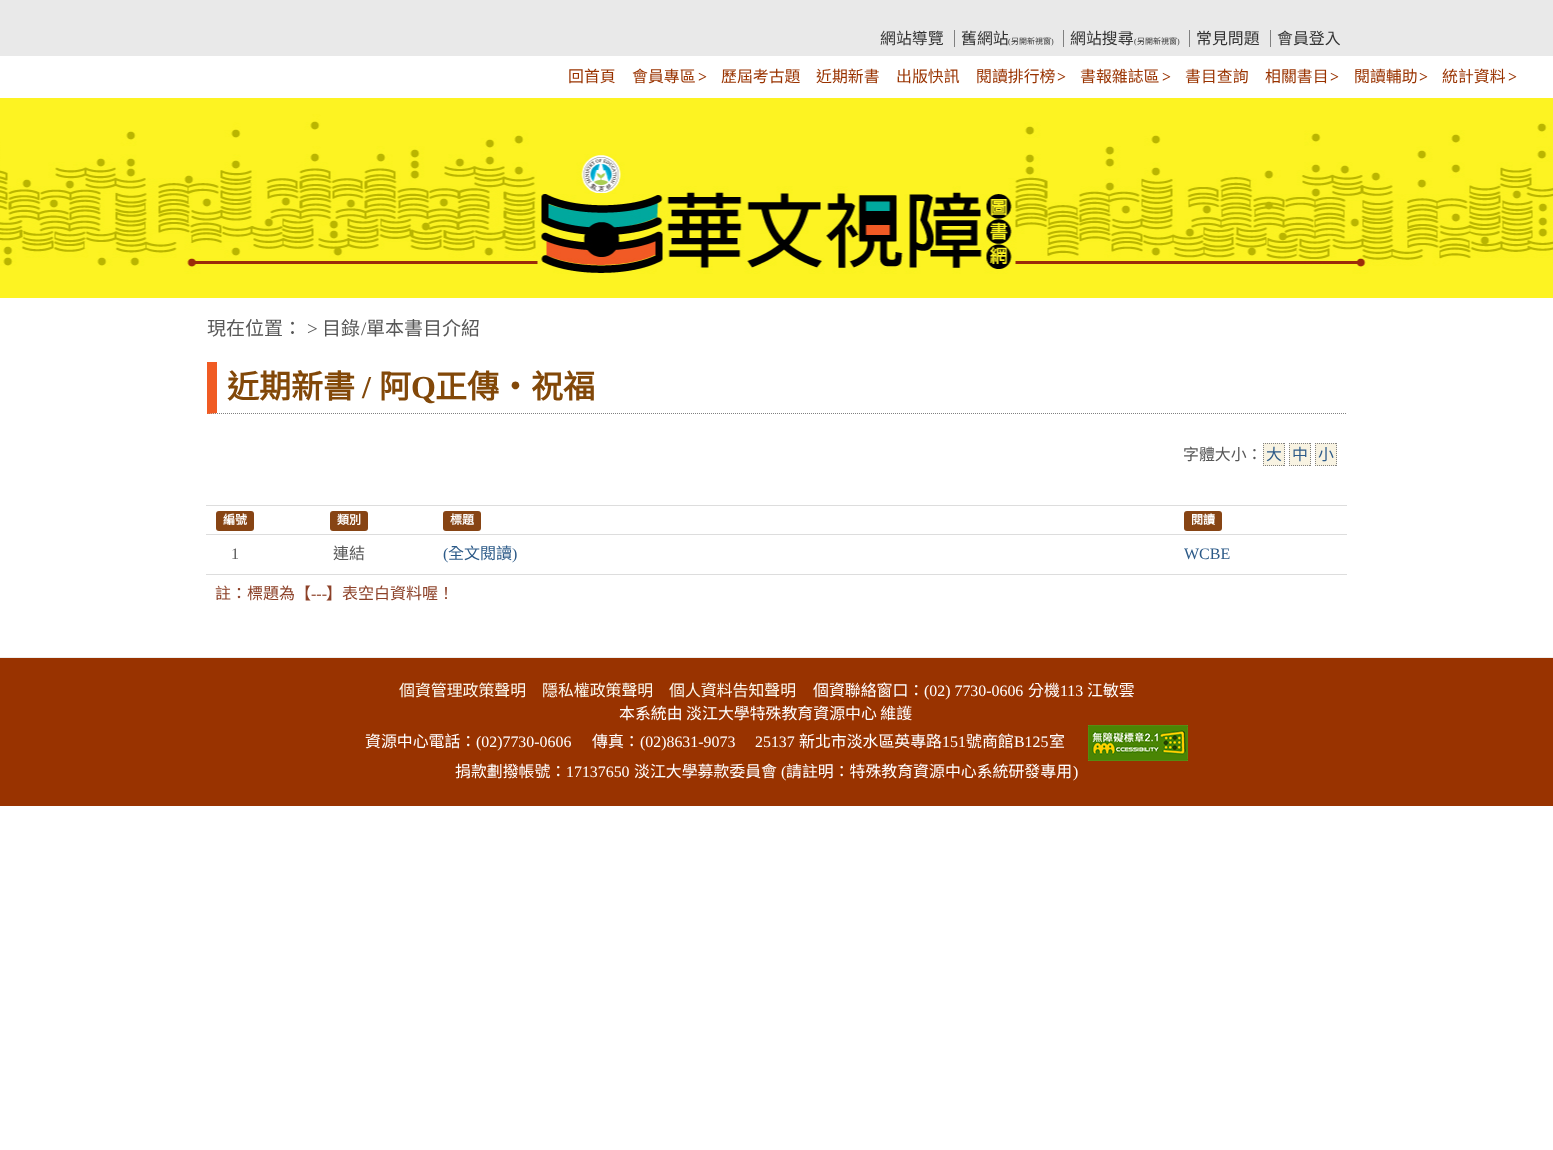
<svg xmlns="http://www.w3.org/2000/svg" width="1553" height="1150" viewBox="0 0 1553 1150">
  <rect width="100%" height="100%" fill="#fff"/>
  <path d="M0 0h1553v56H0z" fill="#e9e9e9"/>
  <path d="M954 30h1v17H954z" fill="#808080"/>
  <path d="M1063 30h1v17H1063z" fill="#808080"/>
  <path d="M1189 30h1v17H1189z" fill="#808080"/>
  <path d="M1270 30h1v17H1270z" fill="#808080"/>
  <image x="0" y="98" width="1553" height="200" href="img/1.png"/>
  <path d="M207 413.5H1347" fill="none" stroke="#808080" stroke-dasharray="1 1"/>
  <path d="M207 414V362H217V413Z" fill="#f05b23"/>
  <path d="M1263 443h22v23H1263z" fill="#f8f3e2"/>
  <path d="M1263 443.5H1285M1284.5 443V466M1263 465.5H1285M1263.5 443V466" fill="none" stroke="#808080" stroke-dasharray="1 1"/>
  <path d="M1289 443h22v23H1289z" fill="#f8f3e2"/>
  <path d="M1289 443.5H1311M1310.5 443V466M1289 465.5H1311M1289.5 443V466" fill="none" stroke="#808080" stroke-dasharray="1 1"/>
  <path d="M1315 443h22v23H1315z" fill="#f8f3e2"/>
  <path d="M1315 443.5H1337M1336.5 443V466M1315 465.5H1337M1315.5 443V466" fill="none" stroke="#808080" stroke-dasharray="1 1"/>
  <rect x="216" y="511" width="38" height="20" rx="3" fill="#874414"/>
  <rect x="330" y="511" width="38" height="20" rx="3" fill="#874414"/>
  <rect x="443" y="511" width="38" height="20" rx="3" fill="#874414"/>
  <path d="M206 505h1141v1H206z" fill="#ddd"/>
  <rect x="1184" y="511" width="38" height="20" rx="3" fill="#874414"/>
  <path d="M206 534h1141v1H206z" fill="#ddd"/>
  <path d="M206 574h1141v1H206z" fill="#ddd"/>
  <path d="M0 657h1553v1H0z" fill="#eee"/>
  <path d="M0 658h1553v148H0z" fill="#930"/>
  <image x="1088" y="725" width="100" height="36" href="img/2.png"/>
  <g font-family="Noto Sans CJK TC" font-size="15.9" fill="#333">
    <text x="880" y="44">網站導覽</text>
    <text x="961" y="44">舊網站</text>
  </g>
  <text x="1008" y="44" font-family="Liberation Serif" font-size="8" fill="#333">(</text>
  <text x="1011" y="44" font-family="Noto Sans CJK TC" font-size="8" fill="#333">另開新視窗</text>
  <text x="1051" y="44" font-family="Liberation Serif" font-size="8" fill="#333">)</text>
  <text x="1070" y="44" font-family="Noto Sans CJK TC" font-size="15.9" fill="#333">網站搜尋</text>
  <text x="1134" y="44" font-family="Liberation Serif" font-size="8" fill="#333">(</text>
  <text x="1137" y="44" font-family="Noto Sans CJK TC" font-size="8" fill="#333">另開新視窗</text>
  <text x="1177" y="44" font-family="Liberation Serif" font-size="8" fill="#333">)</text>
  <g font-family="Noto Sans CJK TC" font-size="15.9" fill="#333">
    <text x="1196" y="44">常見問題</text>
    <text x="1277" y="44">會員登入</text>
  </g>
  <g font-family="Noto Sans CJK TC" font-size="15.9" fill="#930">
    <text x="568" y="82">回首頁</text>
    <text x="632" y="82">會員專區</text>
  </g>
  <text x="698" y="82" font-family="Liberation Serif" font-size="15.9" font-weight="bold" letter-spacing="-2" fill="#930">&gt;</text>
  <g font-family="Noto Sans CJK TC" font-size="15.9" fill="#930">
    <text x="721" y="82">歷屆考古題</text>
    <text x="816" y="82">近期新書</text>
    <text x="896" y="82">出版快訊</text>
    <text x="976" y="82">閱讀排行榜</text>
  </g>
  <text x="1057" y="82" font-family="Liberation Serif" font-size="15.9" font-weight="bold" letter-spacing="-2" fill="#930">&gt;</text>
  <text x="1080" y="82" font-family="Noto Sans CJK TC" font-size="15.9" fill="#930">書報雜誌區</text>
  <text x="1162" y="82" font-family="Liberation Serif" font-size="15.9" font-weight="bold" letter-spacing="-2" fill="#930">&gt;</text>
  <g font-family="Noto Sans CJK TC" font-size="15.9" fill="#930">
    <text x="1185" y="82">書目查詢</text>
    <text x="1265" y="82">相關書目</text>
  </g>
  <text x="1330" y="82" font-family="Liberation Serif" font-size="15.9" font-weight="bold" letter-spacing="-2" fill="#930">&gt;</text>
  <text x="1354" y="82" font-family="Noto Sans CJK TC" font-size="15.9" fill="#930">閱讀輔助</text>
  <text x="1419" y="82" font-family="Liberation Serif" font-size="15.9" font-weight="bold" letter-spacing="-2" fill="#930">&gt;</text>
  <text x="1442" y="82" font-family="Noto Sans CJK TC" font-size="15.9" fill="#930">統計資料</text>
  <text x="1508" y="82" font-family="Liberation Serif" font-size="15.9" font-weight="bold" letter-spacing="-2" fill="#930">&gt;</text>
  <text x="207" y="335" font-family="Noto Sans CJK TC" font-size="19" fill="#575757">現在位置：</text>
  <text x="307" y="335" font-family="Liberation Serif" font-size="19" fill="#575757">&gt;</text>
  <text x="322" y="335" font-family="Noto Sans CJK TC" font-size="19" fill="#575757">目錄</text>
  <text x="361" y="335" font-family="Liberation Serif" font-size="19" fill="#575757">/</text>
  <text x="366" y="335" font-family="Noto Sans CJK TC" font-size="19" fill="#575757">單本書目介紹</text>
  <text x="227" y="398" font-family="Noto Sans CJK TC" font-size="32" font-weight="bold" fill="#824809">近期新書</text>
  <text x="362" y="398" font-family="Liberation Serif" font-size="32" font-weight="bold" fill="#824809">/</text>
  <text x="379" y="398" font-family="Noto Sans CJK TC" font-size="32" font-weight="bold" fill="#824809">阿</text>
  <text x="411" y="398" font-family="Liberation Serif" font-size="32" font-weight="bold" fill="#824809">Q</text>
  <text x="435" y="398" font-family="Noto Sans CJK TC" font-size="32" font-weight="bold" fill="#824809">正傳‧祝福</text>
  <text x="1183" y="460" font-family="Noto Sans CJK TC" font-size="15.9" fill="#575757">字體大小：</text>
  <g font-family="Noto Sans CJK TC" font-size="15.9" fill="#2c5a88">
    <text x="1266" y="460">大</text>
    <text x="1292" y="460">中</text>
    <text x="1318" y="460">小</text>
  </g>
  <g font-family="Noto Sans CJK TC" font-size="12" font-weight="bold" fill="#fff">
    <text x="223" y="524">編號</text>
    <text x="337" y="524">類別</text>
    <text x="450" y="524">標題</text>
    <text x="1191" y="524">閱讀</text>
  </g>
  <text x="231" y="559" font-family="Liberation Serif" font-size="16" fill="#575757">1</text>
  <text x="333" y="559" font-family="Noto Sans CJK TC" font-size="16" fill="#575757">連結</text>
  <text x="443" y="559" font-family="Liberation Serif" font-size="16" fill="#2c5a88">(</text>
  <text x="448" y="559" font-family="Noto Sans CJK TC" font-size="16" fill="#2c5a88">全文閱讀</text>
  <g font-family="Liberation Serif" font-size="16" fill="#2c5a88">
    <text x="512" y="559">)</text>
    <text x="1184" y="559">WCBE</text>
  </g>
  <text x="215" y="599" font-family="Noto Sans CJK TC" font-size="16" fill="#8c4128">註：標題為【</text>
  <text x="311" y="599" font-family="Liberation Serif" font-size="16" fill="#8c4128">---</text>
  <text x="326" y="599" font-family="Noto Sans CJK TC" font-size="16" fill="#8c4128">】表空白資料喔！</text>
  <g font-family="Noto Sans CJK TC" font-size="15.9" fill="#fcf9ed">
    <text x="399" y="696">個資管理政策聲明</text>
    <text x="542" y="696">隱私權政策聲明</text>
    <text x="669" y="696">個人資料告知聲明</text>
  </g>
  <text x="813" y="696" font-family="Noto Sans CJK TC" font-size="15.9" fill="#fff">個資聯絡窗口：</text>
  <text x="924" y="696" font-family="Liberation Serif" font-size="15.9" fill="#fff">(02) 7730-0606</text>
  <text x="1028" y="696" font-family="Noto Sans CJK TC" font-size="15.9" fill="#fff">分機</text>
  <text x="1060" y="696" font-family="Liberation Serif" font-size="15.9" fill="#fff">113</text>
  <g font-family="Noto Sans CJK TC" font-size="15.9" fill="#fff">
    <text x="1087" y="696">江敏雲</text>
    <text x="619" y="719">本系統由 淡江大學特殊教育資源中心 維護</text>
    <text x="365" y="747">資源中心電話：</text>
  </g>
  <text x="476" y="747" font-family="Liberation Serif" font-size="15.9" fill="#fff">(02)7730-0606</text>
  <text x="592" y="747" font-family="Noto Sans CJK TC" font-size="15.9" fill="#fff">傳真：</text>
  <g font-family="Liberation Serif" font-size="15.9" fill="#fff">
    <text x="640" y="747">(02)8631-9073</text>
    <text x="755" y="747">25137</text>
  </g>
  <text x="799" y="747" font-family="Noto Sans CJK TC" font-size="15.9" fill="#fff">新北市淡水區英專路</text>
  <text x="942" y="747" font-family="Liberation Serif" font-size="15.9" fill="#fff">151</text>
  <text x="966" y="747" font-family="Noto Sans CJK TC" font-size="15.9" fill="#fff">號商館</text>
  <text x="1014" y="747" font-family="Liberation Serif" font-size="15.9" fill="#fff">B125</text>
  <g font-family="Noto Sans CJK TC" font-size="15.9" fill="#fff">
    <text x="1049" y="747">室</text>
    <text x="455" y="777">捐款劃撥帳號：</text>
  </g>
  <text x="566" y="777" font-family="Liberation Serif" font-size="15.9" fill="#fff">17137650</text>
  <text x="634" y="777" font-family="Noto Sans CJK TC" font-size="15.9" fill="#fff">淡江大學募款委員會</text>
  <text x="781" y="777" font-family="Liberation Serif" font-size="15.9" fill="#fff">(</text>
  <text x="786" y="777" font-family="Noto Sans CJK TC" font-size="15.9" fill="#fff">請註明：特殊教育資源中心系統研發專用</text>
  <text x="1073" y="777" font-family="Liberation Serif" font-size="15.9" fill="#fff">)</text>
</svg>
